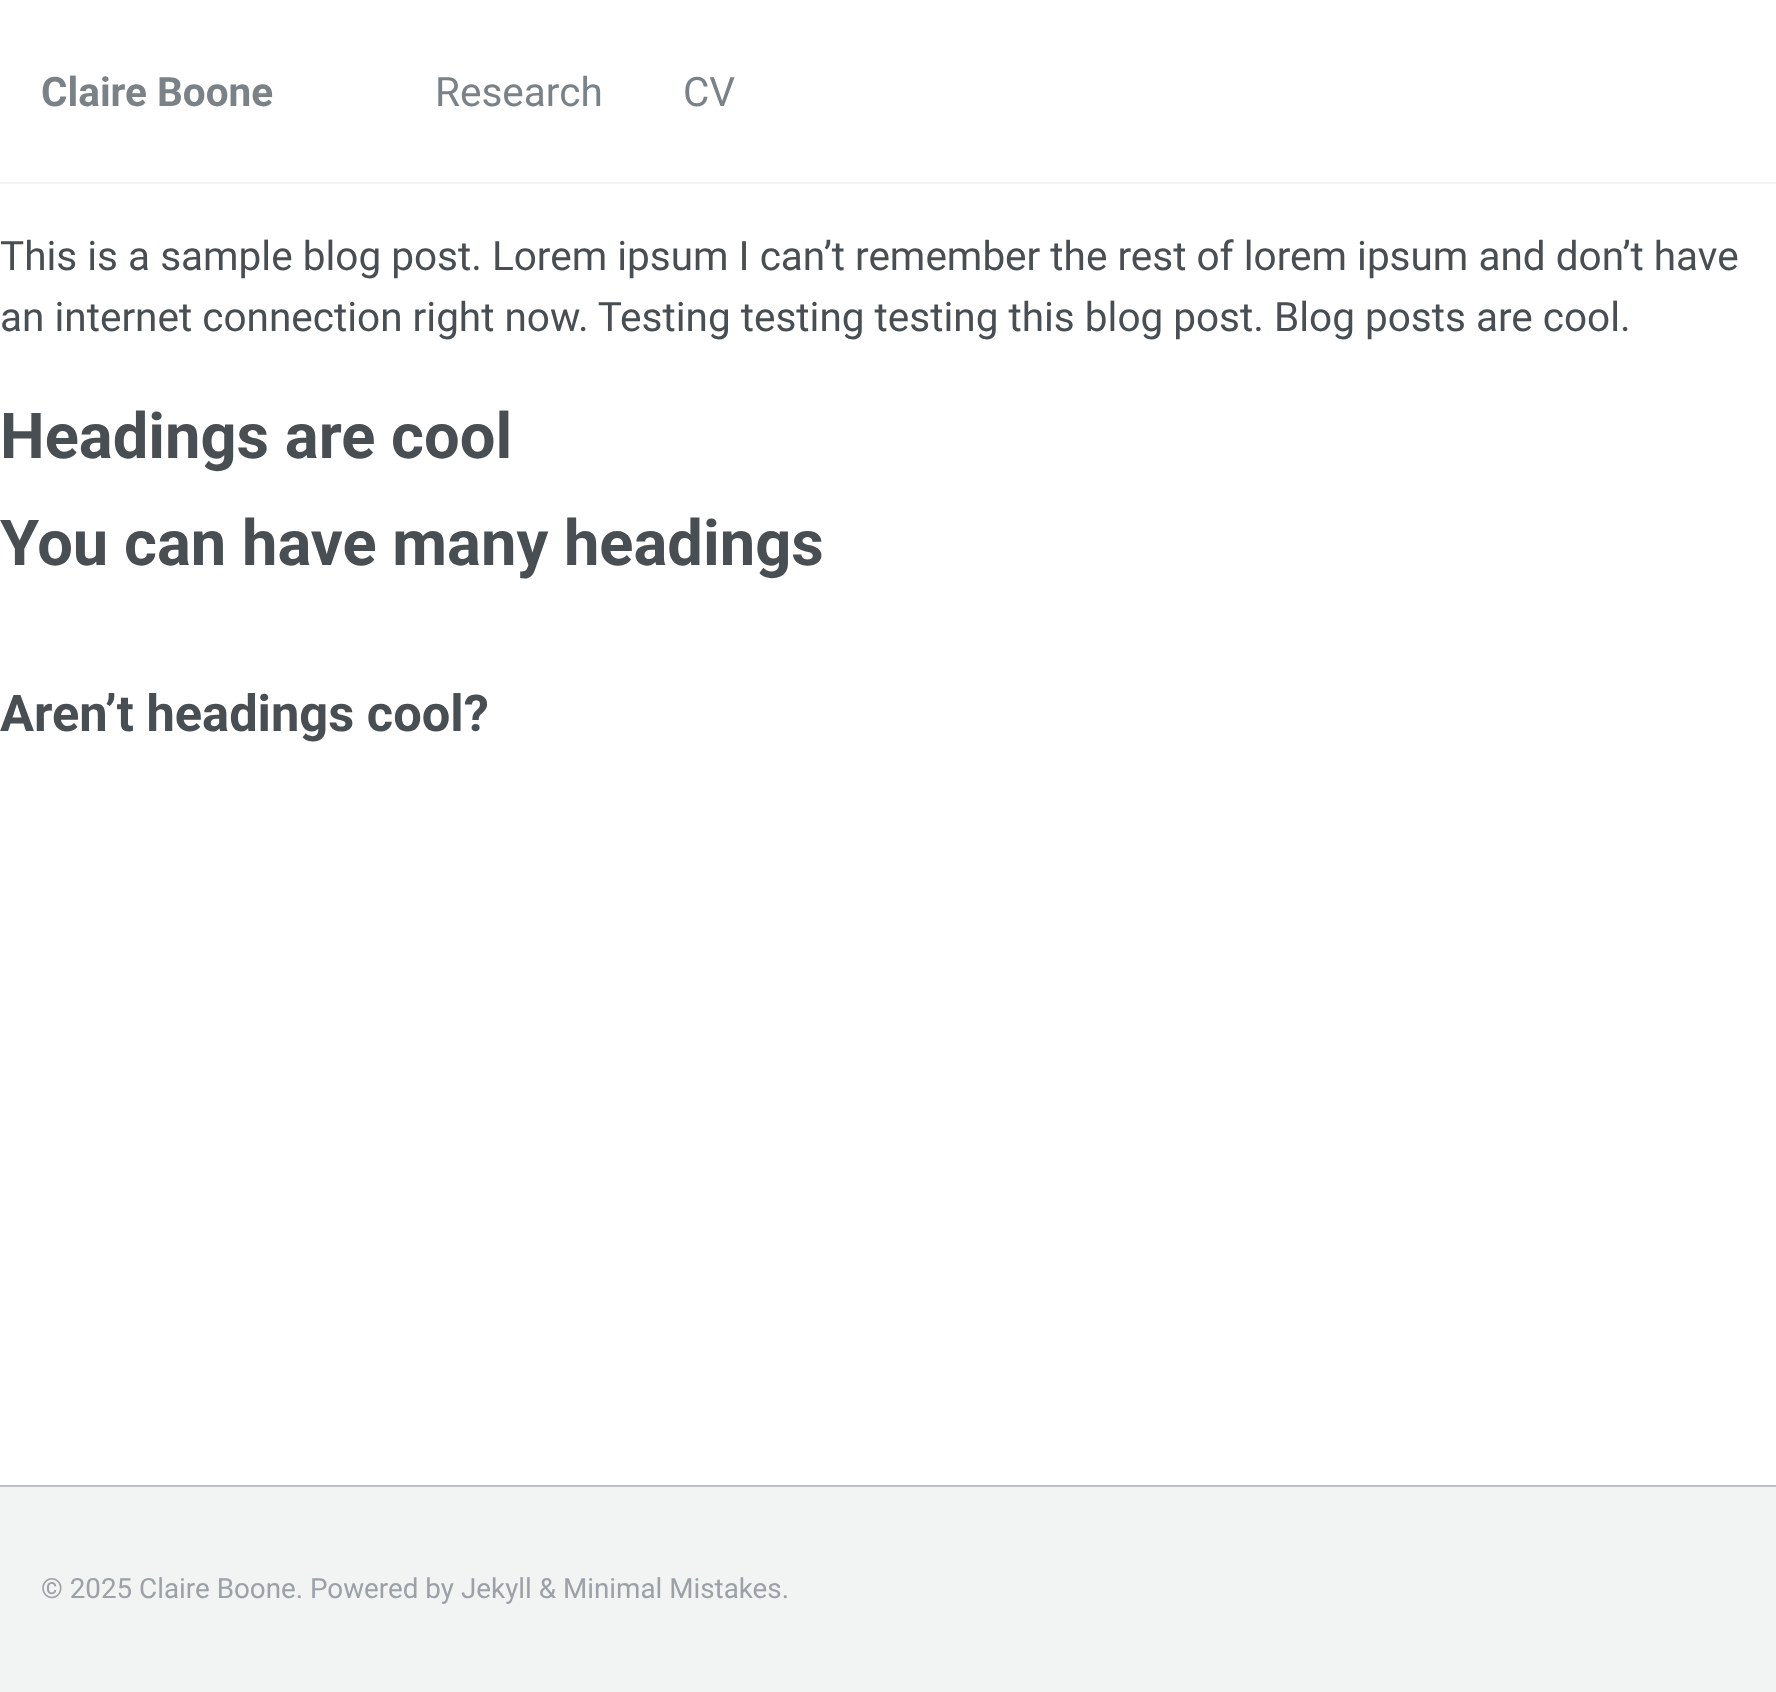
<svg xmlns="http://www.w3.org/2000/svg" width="1776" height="1692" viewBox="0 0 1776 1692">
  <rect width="100%" height="100%" fill="#fff"/>
  <path d="M0 182h1776v2H0z" fill="#f2f3f3"/>
  <path d="M0 1487h1776v205H0z" fill="#f2f3f3"/>
  <path d="M0 1485h1776v2H0z" fill="#bdc1c4"/>
  <text x="41" y="106" font-family="Roboto" font-size="40.5" font-weight="bold" fill="#7a8288">Claire Boone</text>
  <g font-family="Roboto" font-size="40.5" fill="#7a8288">
    <text x="435" y="106">Research</text>
    <text x="683" y="106">CV</text>
  </g>
  <g font-family="Roboto" font-size="40.5" fill="#494e52">
    <text x="0" y="270">This is a sample blog post. Lorem ipsum I can’t remember the rest of lorem ipsum and don’t have</text>
    <text x="0" y="331">an internet connection right now. Testing testing testing this blog post. Blog posts are cool.</text>
  </g>
  <g font-family="Roboto" font-size="63.25" font-weight="bold" fill="#494e52">
    <text x="0" y="458">Headings are cool</text>
    <text x="0" y="565">You can have many headings</text>
  </g>
  <text x="0" y="731" font-family="Roboto" font-size="50.6" font-weight="bold" fill="#494e52">Aren’t headings cool?</text>
  <g font-family="Roboto" font-size="27.8" fill="#9ba1a6">
    <text x="41" y="1598">© 2025 Claire Boone. Powered by</text>
    <text x="461" y="1598">Jekyll &amp; Minimal Mistakes.</text>
  </g>
</svg>
